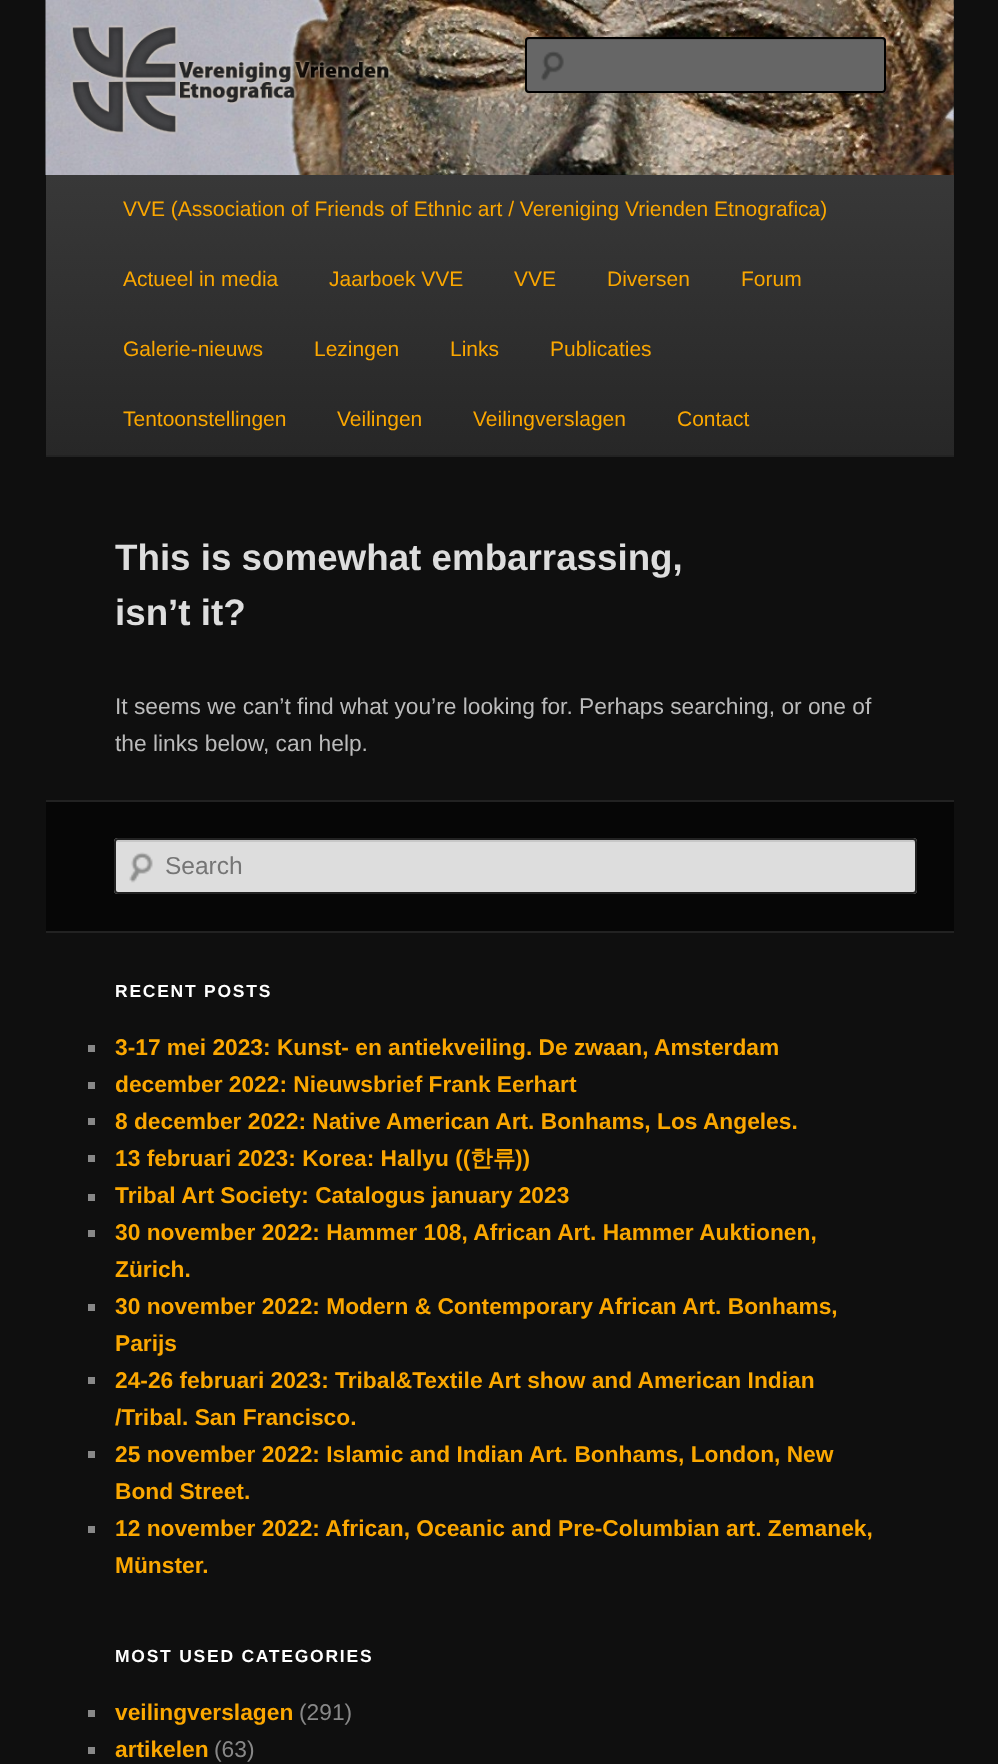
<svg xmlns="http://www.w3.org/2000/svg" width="998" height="1764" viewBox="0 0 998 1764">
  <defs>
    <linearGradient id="g1" gradientUnits="userSpaceOnUse" x1="500" y1="175" x2="500" y2="455"><stop offset="0" stop-color="#383838"/><stop offset="1" stop-color="#272727"/></linearGradient>
  </defs>
  <rect width="100%" height="100%" fill="#0f0f0f"/>
  <image x="45" y="0" width="909" height="175" href="img/1.png"/>
  <image x="70" y="25" width="321" height="110" href="img/2.png"/>
  <rect x="525" y="37" width="361" height="56" rx="4" fill="#666"/>
  <image x="541" y="51" width="23" height="30" href="img/3.png"/>
  <path d="M528 40H882C883 40 884 41 884 42C884 41 884 39 882 39H529C527 39 527 41 527 42Z" fill="#5c5c5c"/>
  <rect x="526" y="38" width="359" height="54" rx="3" fill="none" stroke="#000" stroke-width="2"/>
  <path d="M46 175h908v280H46z" fill="url(#g1)"/>
  <path d="M46 455h908v2H46z" fill="#222"/>
  <path d="M46 802h908v129H46z" fill="#060606"/>
  <path d="M46 800h908v2H46z" fill="#222"/>
  <path d="M46 931h908v2H46z" fill="#222"/>
  <rect x="114" y="838" width="803" height="56" rx="4" fill="#ddd"/>
  <image x="129" y="852" width="24" height="31" href="img/4.png"/>
  <path d="M117 842H914L915 844V841L913 840H118L117 841C116 841 116 843 116 844C116 843 116 842 117 842Z" fill="#c7c7c7"/>
  <rect x="115" y="839" width="801" height="54" rx="3" fill="none" stroke="#222" stroke-width="2"/>
  <path d="M88 1045h7v7H88z" fill="#888"/>
  <path d="M88 1082h7v7H88z" fill="#888"/>
  <path d="M88 1118h7v7H88z" fill="#888"/>
  <path d="M88 1155h7v7H88z" fill="#888"/>
  <path d="M88 1194h7v7H88z" fill="#888"/>
  <path d="M88 1230h7v7H88z" fill="#888"/>
  <path d="M88 1304h7v7H88z" fill="#888"/>
  <path d="M88 1377h7v7H88z" fill="#888"/>
  <path d="M88 1451h7v7H88z" fill="#888"/>
  <path d="M88 1526h7v7H88z" fill="#888"/>
  <path d="M88 1710h7v7H88z" fill="#888"/>
  <path d="M88 1747h7v7H88z" fill="#888"/>
  <g font-family="Liberation Sans" font-size="21" fill="#fba700">
    <text x="123" y="216">VVE (Association of Friends of Ethnic art / Vereniging Vrienden Etnografica)</text>
    <text x="123" y="286">Actueel in media</text>
    <text x="329" y="286">Jaarboek VVE</text>
    <text x="514" y="286">VVE</text>
    <text x="607" y="286">Diversen</text>
    <text x="741" y="286">Forum</text>
    <text x="123" y="356">Galerie-nieuws</text>
    <text x="314" y="356">Lezingen</text>
    <text x="450" y="356">Links</text>
    <text x="550" y="356">Publicaties</text>
    <text x="123" y="426">Tentoonstellingen</text>
    <text x="337" y="426">Veilingen</text>
    <text x="473" y="426">Veilingverslagen</text>
    <text x="677" y="426">Contact</text>
  </g>
  <g font-family="Liberation Sans" font-size="36.75" font-weight="bold" fill="#ddd">
    <text x="115" y="570">This is somewhat embarrassing,</text>
    <text x="115" y="625">isn’t it?</text>
  </g>
  <g font-family="Liberation Sans" font-size="22.75" fill="#bbb">
    <text x="115" y="714">It seems we can’t find what you’re looking for. Perhaps searching, or one of</text>
    <text x="115" y="751">the links below, can help.</text>
  </g>
  <text x="165" y="874" font-family="Liberation Sans" font-size="24.5" fill="#757575">Search</text>
  <text x="115" y="997" font-family="Liberation Sans" font-size="17.5" font-weight="bold" letter-spacing="1.75" fill="#fff">RECENT POSTS</text>
  <g font-family="Liberation Sans" font-size="22.75" font-weight="bold" fill="#fba700">
    <text x="115" y="1055">3-17 mei 2023: Kunst- en antiekveiling. De zwaan, Amsterdam</text>
    <text x="115" y="1092">december 2022: Nieuwsbrief Frank Eerhart</text>
    <text x="115" y="1129">8 december 2022: Native American Art. Bonhams, Los Angeles.</text>
    <text x="115" y="1166">13 februari 2023: Korea: Hallyu ((</text>
  </g>
  <text x="470" y="1166" font-family="WenQuanYi Zen Hei" font-size="22.75" font-weight="bold" fill="#fba700">한류</text>
  <g font-family="Liberation Sans" font-size="22.75" font-weight="bold" fill="#fba700">
    <text x="515" y="1166">))</text>
    <text x="115" y="1203">Tribal Art Society: Catalogus january 2023</text>
    <text x="115" y="1240">30 november 2022: Hammer 108, African Art. Hammer Auktionen,</text>
    <text x="115" y="1277">Zürich.</text>
    <text x="115" y="1314">30 november 2022: Modern &amp; Contemporary African Art. Bonhams,</text>
    <text x="115" y="1351">Parijs</text>
    <text x="115" y="1388">24-26 februari 2023: Tribal&amp;Textile Art show and American Indian</text>
    <text x="115" y="1425">/Tribal. San Francisco.</text>
    <text x="115" y="1462">25 november 2022: Islamic and Indian Art. Bonhams, London, New</text>
    <text x="115" y="1499">Bond Street.</text>
    <text x="115" y="1536">12 november 2022: African, Oceanic and Pre-Columbian art. Zemanek,</text>
    <text x="115" y="1573">Münster.</text>
  </g>
  <text x="115" y="1662" font-family="Liberation Sans" font-size="17.5" font-weight="bold" letter-spacing="1.75" fill="#fff">MOST USED CATEGORIES</text>
  <text x="115" y="1720" font-family="Liberation Sans" font-size="22.75" font-weight="bold" fill="#fba700">veilingverslagen</text>
  <text x="299" y="1720" font-family="Liberation Sans" font-size="22.75" fill="#888">(291)</text>
  <text x="115" y="1757" font-family="Liberation Sans" font-size="22.75" font-weight="bold" fill="#fba700">artikelen</text>
  <text x="214" y="1757" font-family="Liberation Sans" font-size="22.75" fill="#888">(63)</text>
</svg>
